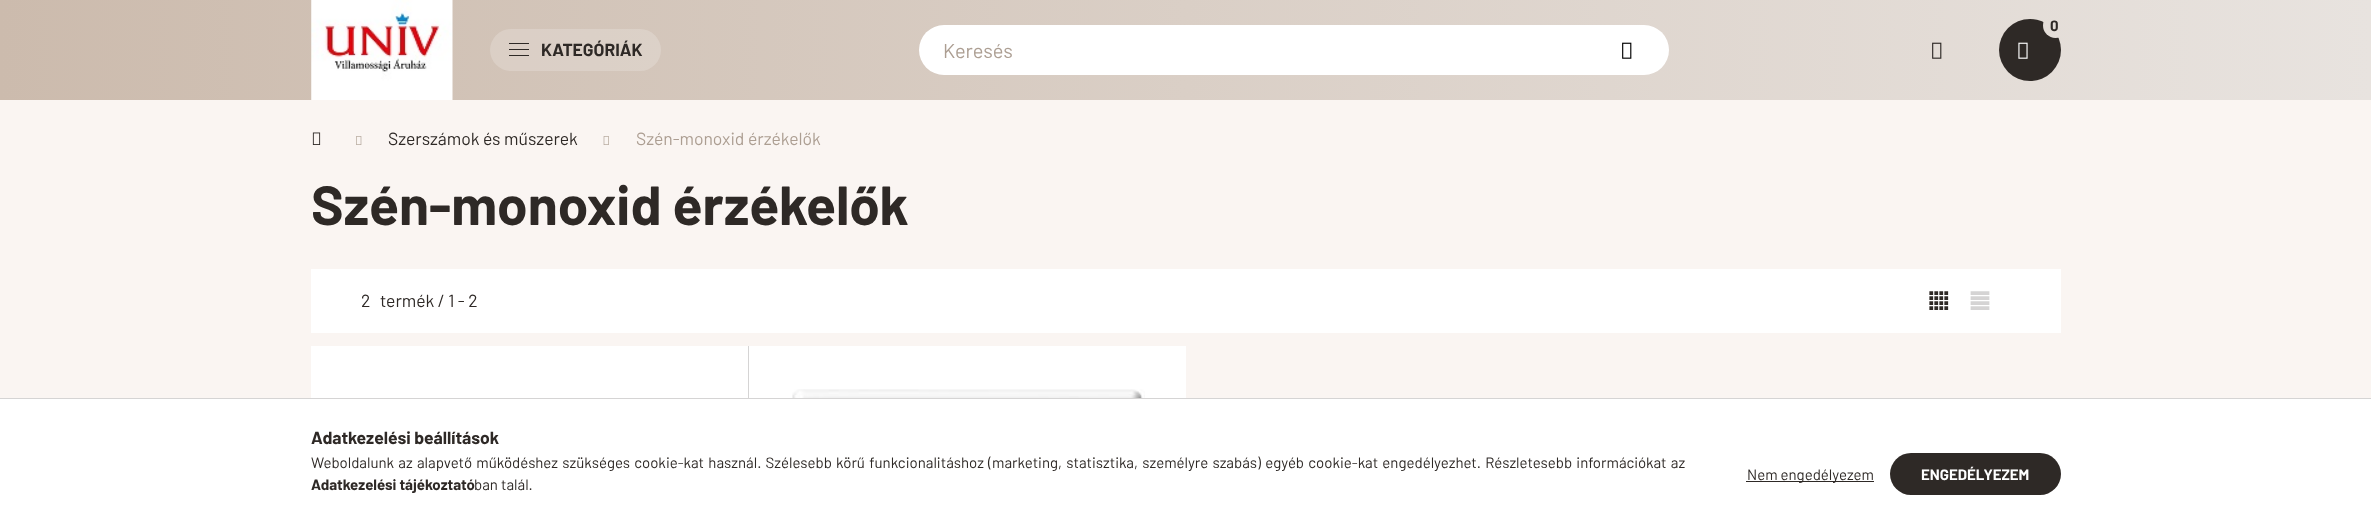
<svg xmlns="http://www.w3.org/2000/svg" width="2371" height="519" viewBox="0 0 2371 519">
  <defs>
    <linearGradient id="g1" gradientUnits="userSpaceOnUse" x1="0" y1="260" x2="2371" y2="260"><stop offset="0" stop-color="#ccbbad"/><stop offset="1" stop-color="#e8e3df"/></linearGradient>
    <linearGradient id="g2" gradientUnits="userSpaceOnUse" x1="1890" y1="474" x2="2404" y2="474"><stop offset="0.33" stop-color="#2e2926"/><stop offset="0.67" stop-color="#ccbbad"/></linearGradient>
  </defs>
  <rect width="100%" height="100%" fill="#faf5f2"/>
  <path d="M0 0h2371v100H0z" fill="url(#g1)"/>
  <image x="311" y="0" width="142" height="100" href="img/1.png"/>
  <rect x="490" y="29" width="171" height="42" rx="21" fill="#ffffff33"/>
  <path d="M509 43h20v1H509z" fill="#2e2926"/>
  <path d="M509 49h20v1H509z" fill="#2e2926"/>
  <path d="M509 55h20v1H509z" fill="#2e2926"/>
  <circle cx="2030" cy="50" r="31" fill="#2e2926"/>
  <circle cx="2055.5" cy="25.5" r="12.5" fill="url(#g1)"/>
  <image x="2018" y="42" width="10" height="17" href="img/2.png"/>
  <rect x="919" y="25" width="750" height="50" rx="25" fill="#fff"/>
  <image x="1622" y="42" width="10" height="17" href="img/3.png"/>
  <image x="1932" y="42" width="10" height="17" href="img/4.png"/>
  <image x="312" y="132" width="9" height="13" href="img/5.png"/>
  <image x="356" y="136" width="6" height="9" href="img/6.png"/>
  <image x="603" y="136" width="6" height="9" href="img/7.png"/>
  <path d="M311 269h1750v64H311z" fill="#fff"/>
  <image x="1929" y="291" width="20" height="19" href="img/8.png"/>
  <image x="1970" y="291" width="20" height="19" href="img/9.png"/>
  <path d="M311 346h437v52H311z" fill="#fff"/>
  <path d="M748 345h1v53H748z" fill="#d5d4d4"/>
  <path d="M748 345h1v1H748z" fill="#faf5f2"/>
  <path d="M749 346h437v52H749z" fill="#fff"/>
  <image x="792" y="389" width="353" height="9" href="img/10.png"/>
  <path d="M0 399h2371v120H0z" fill="#fff"/>
  <path d="M0 398h2371v1H0z" fill="#d5d4d4"/>
  <path d="M1746 481h128v1H1746z" fill="#2e2926"/>
  <rect x="1890" y="453" width="171" height="42" rx="21" fill="url(#g2)"/>
  <text x="541" y="56" font-family="Barlow" font-size="17.5" font-weight="bold" fill="#2e2926">KATEGÓRIÁK</text>
  <text x="2050" y="31" font-family="Barlow" font-size="15" font-weight="bold" fill="#2e2926">0</text>
  <text x="943" y="58" font-family="Barlow" font-size="20" fill="#ac9e92">Keresés</text>
  <text x="388" y="145" font-family="Barlow" font-size="17.5" fill="#2e2926">Szerszámok és műszerek</text>
  <text x="636" y="145" font-family="Barlow" font-size="17.5" fill="#ac9e92">Szén-monoxid érzékelők</text>
  <text x="311" y="225" font-family="Barlow" font-size="55" font-weight="bold" fill="#2e2926">Szén-monoxid érzékelők</text>
  <g font-family="Barlow" font-size="17.5" fill="#2e2926">
    <text x="361" y="307">2</text>
    <text x="380" y="307">termék / 1 - 2</text>
  </g>
  <text x="311" y="444" font-family="Barlow" font-size="17.5" font-weight="bold" fill="#2e2926">Adatkezelési beállítások</text>
  <text x="311" y="468" word-spacing="1.25" font-family="Barlow" font-size="15" fill="#2e2926">Weboldalunk az alapvető működéshez szükséges cookie-kat használ. Szélesebb körű funkcionalitáshoz (marketing, statisztika, személyre szabás) egyéb cookie-kat engedélyezhet. Részletesebb információkat az</text>
  <text x="311" y="490" font-family="Barlow" font-size="15" font-weight="bold" fill="#2e2926">Adatkezelési tájékoztató</text>
  <g font-family="Barlow" font-size="15" fill="#2e2926">
    <text x="474" y="490">ban talál.</text>
    <text x="1747" y="480">Nem engedélyezem</text>
  </g>
  <text x="1921" y="480" font-family="Barlow" font-size="15" font-weight="bold" fill="#fff">ENGEDÉLYEZEM</text>
</svg>
